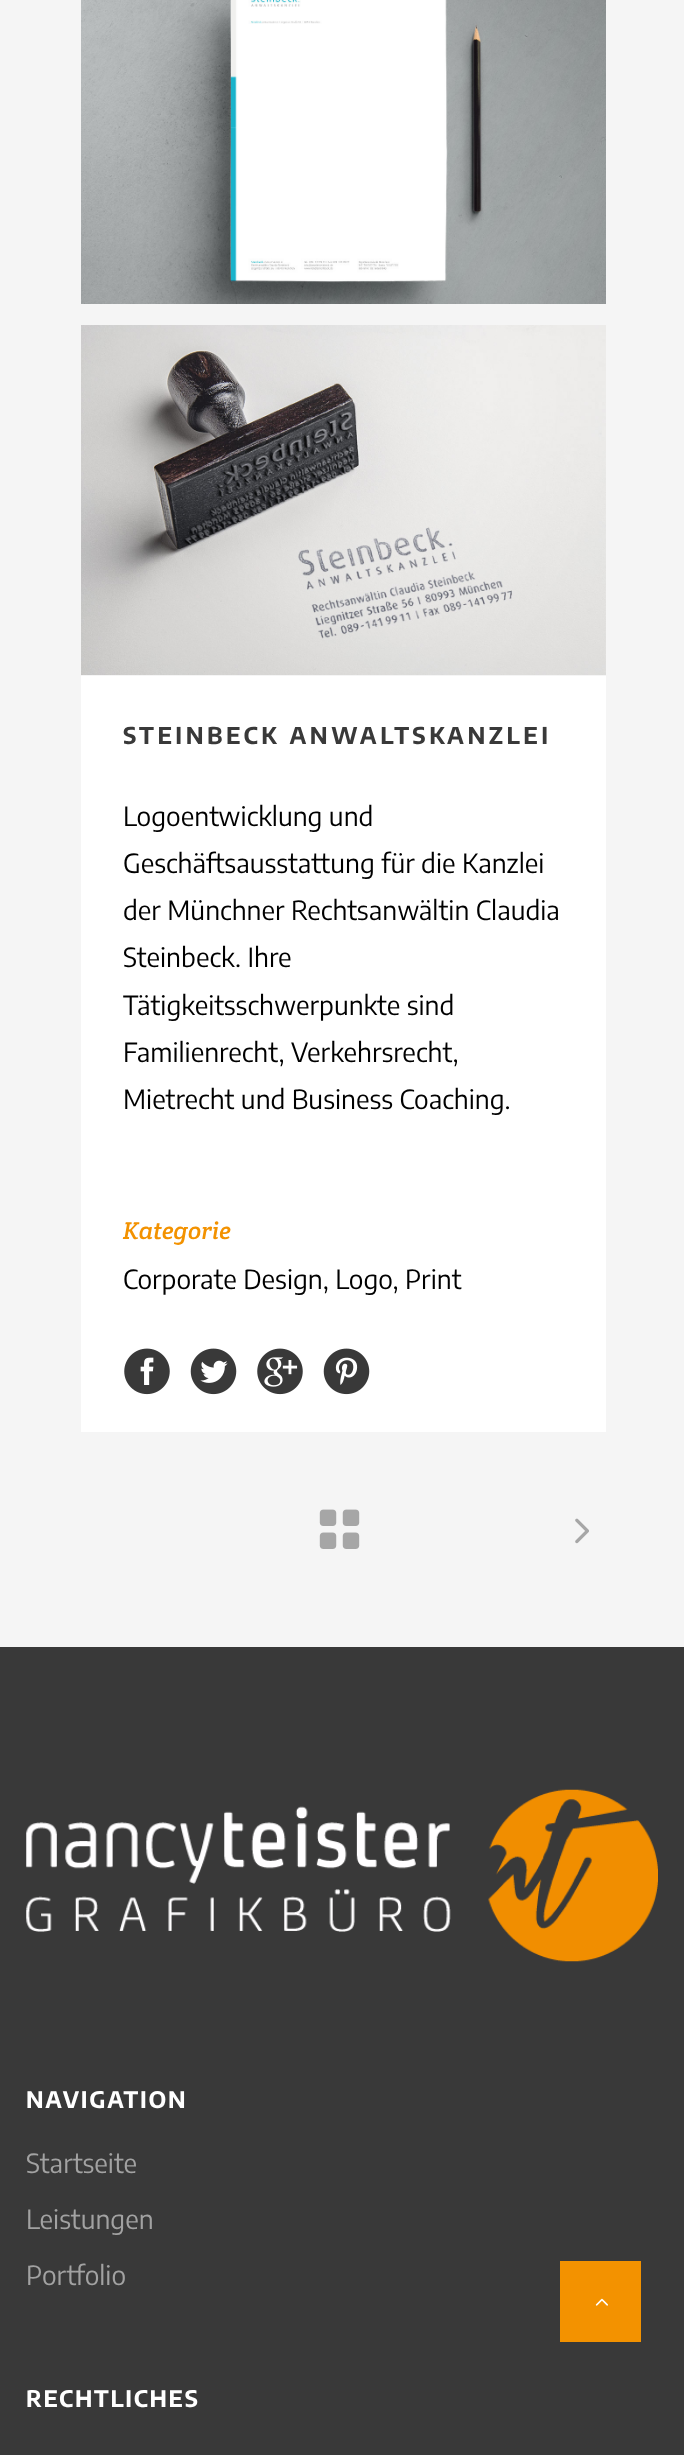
<svg xmlns="http://www.w3.org/2000/svg" width="684" height="2455" viewBox="0 0 684 2455">
  <rect width="100%" height="100%" fill="#f5f5f5"/>
  <image x="81" y="0" width="525" height="304" href="img/1.png"/>
  <image x="81" y="325" width="525" height="350" href="img/2.png"/>
  <path d="M81 676h525v756H81z" fill="#fff"/>
  <image x="124" y="1348" width="46" height="47" href="img/3.png"/>
  <image x="190" y="1348" width="47" height="47" href="img/4.png"/>
  <image x="257" y="1348" width="46" height="47" href="img/5.png"/>
  <image x="323" y="1348" width="47" height="47" href="img/6.png"/>
  <image x="319" y="1509" width="41" height="40" href="img/7.png"/>
  <image x="575" y="1518" width="14" height="26" href="img/8.png"/>
  <path d="M0 1647h684v808H0z" fill="#393939"/>
  <image x="26" y="1789" width="632" height="173" href="img/9.png"/>
  <path d="M560 2261h81v81H560z" fill="#f39200"/>
  <image x="595" y="2298" width="13" height="8" href="img/10.png"/>
  <text x="123" y="744" font-family="Encode Sans Condensed" font-size="23.1" font-weight="bold" letter-spacing="3.5" fill="#393939">STEINBECK ANWALTSKANZLEI</text>
  <g font-family="Encode Sans Condensed" font-size="26.25" fill="#000">
    <text x="123" y="826">Logoentwicklung und</text>
    <text x="123" y="873">Geschäftsausstattung für die Kanzlei</text>
    <text x="123" y="920">der Münchner Rechtsanwältin Claudia</text>
    <text x="123" y="967">Steinbeck. Ihre</text>
    <text x="123" y="1015">Tätigkeitsschwerpunkte sind</text>
    <text x="123" y="1062">Familienrecht, Verkehrsrecht,</text>
    <text x="123" y="1109">Mietrecht und Business Coaching.</text>
  </g>
  <text x="123" y="1239" font-family="Crete Round" font-size="24.5" font-style="italic" fill="#f39200">Kategorie</text>
  <text x="123" y="1289" font-family="Encode Sans Condensed" font-size="26.25" fill="#000">Corporate Design, Logo, Print</text>
  <text x="26" y="2108" font-family="Encode Sans Condensed" font-size="22.75" font-weight="bold" letter-spacing="1.75" fill="#fff">NAVIGATION</text>
  <g font-family="Encode Sans Condensed" font-size="26.25" fill="#a2a2a2">
    <text x="26" y="2173">Startseite</text>
    <text x="26" y="2229">Leistungen</text>
    <text x="26" y="2285">Portfolio</text>
  </g>
  <text x="26" y="2407" font-family="Encode Sans Condensed" font-size="22.75" font-weight="bold" letter-spacing="1.75" fill="#fff">RECHTLICHES</text>
</svg>
